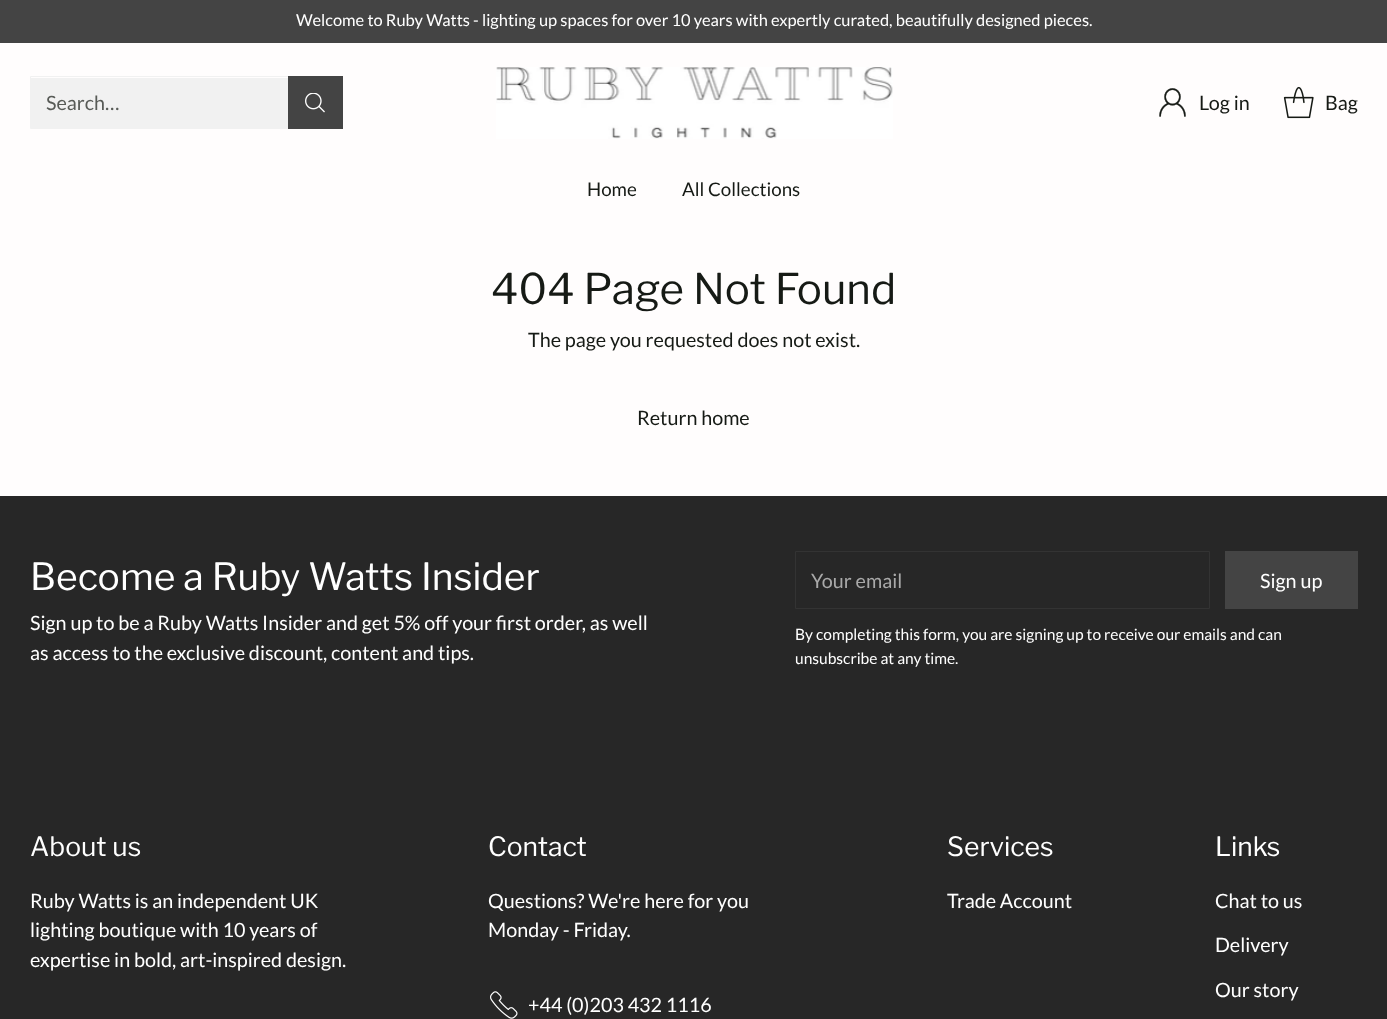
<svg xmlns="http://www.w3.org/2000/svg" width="1387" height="1019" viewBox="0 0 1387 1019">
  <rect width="100%" height="100%" fill="#fffdfd"/>
  <path d="M0 0h1387v43H0z" fill="#444"/>
  <path d="M30.5 76.5h312v52H30.5z" fill="none" stroke="#f1f1f1"/>
  <path d="M31 78h257v50H31z" fill="#f1f1f1"/>
  <path d="M288 76h55v53H288z" fill="#444"/>
  <image x="305" y="93" width="20" height="20" href="img/1.png"/>
  <image x="496" y="67" width="397" height="72" href="img/2.png"/>
  <image x="1159" y="88" width="27" height="29" href="img/3.png"/>
  <image x="1283" y="86" width="31" height="33" href="img/4.png"/>
  <path d="M0 496h1387v523H0z" fill="#272727"/>
  <path d="M795.5 551.5h414v57H795.5z" fill="none" stroke="#333"/>
  <path d="M1225 551h133v58H1225z" fill="#444"/>
  <image x="490" y="991" width="28" height="28" href="img/5.png"/>
  <text x="296" y="26" font-family="Lato" font-size="16.45" fill="#fff">Welcome to Ruby Watts - lighting up spaces for over 10 years with expertly curated, beautifully designed pieces.</text>
  <text x="46" y="110" font-family="Lato" font-size="19.75" fill="#585b57">Search…</text>
  <g font-family="Lato" font-size="19.75" fill="#161a15">
    <text x="1199" y="110">Log in</text>
    <text x="1325" y="110">Bag</text>
  </g>
  <g font-family="Lato" font-size="18.75" fill="#161a15">
    <text x="587" y="196">Home</text>
    <text x="682" y="196">All Collections</text>
  </g>
  <text x="491" y="304" font-family="Libre Franklin" font-size="42.1" fill="#161a15">404 Page Not Found</text>
  <g font-family="Lato" font-size="19.75" fill="#161a15">
    <text x="528" y="347">The page you requested does not exist.</text>
    <text x="637" y="425">Return home</text>
  </g>
  <text x="30" y="590" font-family="Libre Franklin" font-size="37.25" fill="#fff">Become a Ruby Watts Insider</text>
  <g font-family="Lato" font-size="19.75" fill="#fff">
    <text x="30" y="630">Sign up to be a Ruby Watts Insider and get 5% off your first order, as well</text>
    <text x="30" y="660">as access to the exclusive discount, content and tips.</text>
  </g>
  <text x="811" y="588" font-family="Lato" font-size="19.75" fill="#a9a9a9">Your email</text>
  <text x="1260" y="588" font-family="Lato" font-size="19.75" fill="#fff">Sign up</text>
  <g font-family="Lato" font-size="15.55" fill="#fff">
    <text x="795" y="640">By completing this form, you are signing up to receive our emails and can</text>
    <text x="795" y="664">unsubscribe at any time.</text>
  </g>
  <text x="30" y="856" font-family="Libre Franklin" font-size="26.5" fill="#fff">About us</text>
  <g font-family="Lato" font-size="19.75" fill="#fff">
    <text x="30" y="908">Ruby Watts is an independent UK</text>
    <text x="30" y="937">lighting boutique with 10 years of</text>
    <text x="30" y="967">expertise in bold, art-inspired design.</text>
  </g>
  <text x="488" y="856" font-family="Libre Franklin" font-size="26.5" fill="#fff">Contact</text>
  <g font-family="Lato" font-size="19.75" fill="#fff">
    <text x="488" y="908">Questions? We're here for you</text>
    <text x="488" y="937">Monday - Friday.</text>
    <text x="528" y="1012">+44 (0)203 432 1116</text>
  </g>
  <text x="947" y="856" font-family="Libre Franklin" font-size="26.5" fill="#fff">Services</text>
  <text x="947" y="908" font-family="Lato" font-size="19.75" fill="#fff">Trade Account</text>
  <text x="1215" y="856" font-family="Libre Franklin" font-size="26.5" fill="#fff">Links</text>
  <g font-family="Lato" font-size="19.75" fill="#fff">
    <text x="1215" y="908">Chat to us</text>
    <text x="1215" y="952">Delivery</text>
    <text x="1215" y="997">Our story</text>
  </g>
</svg>
